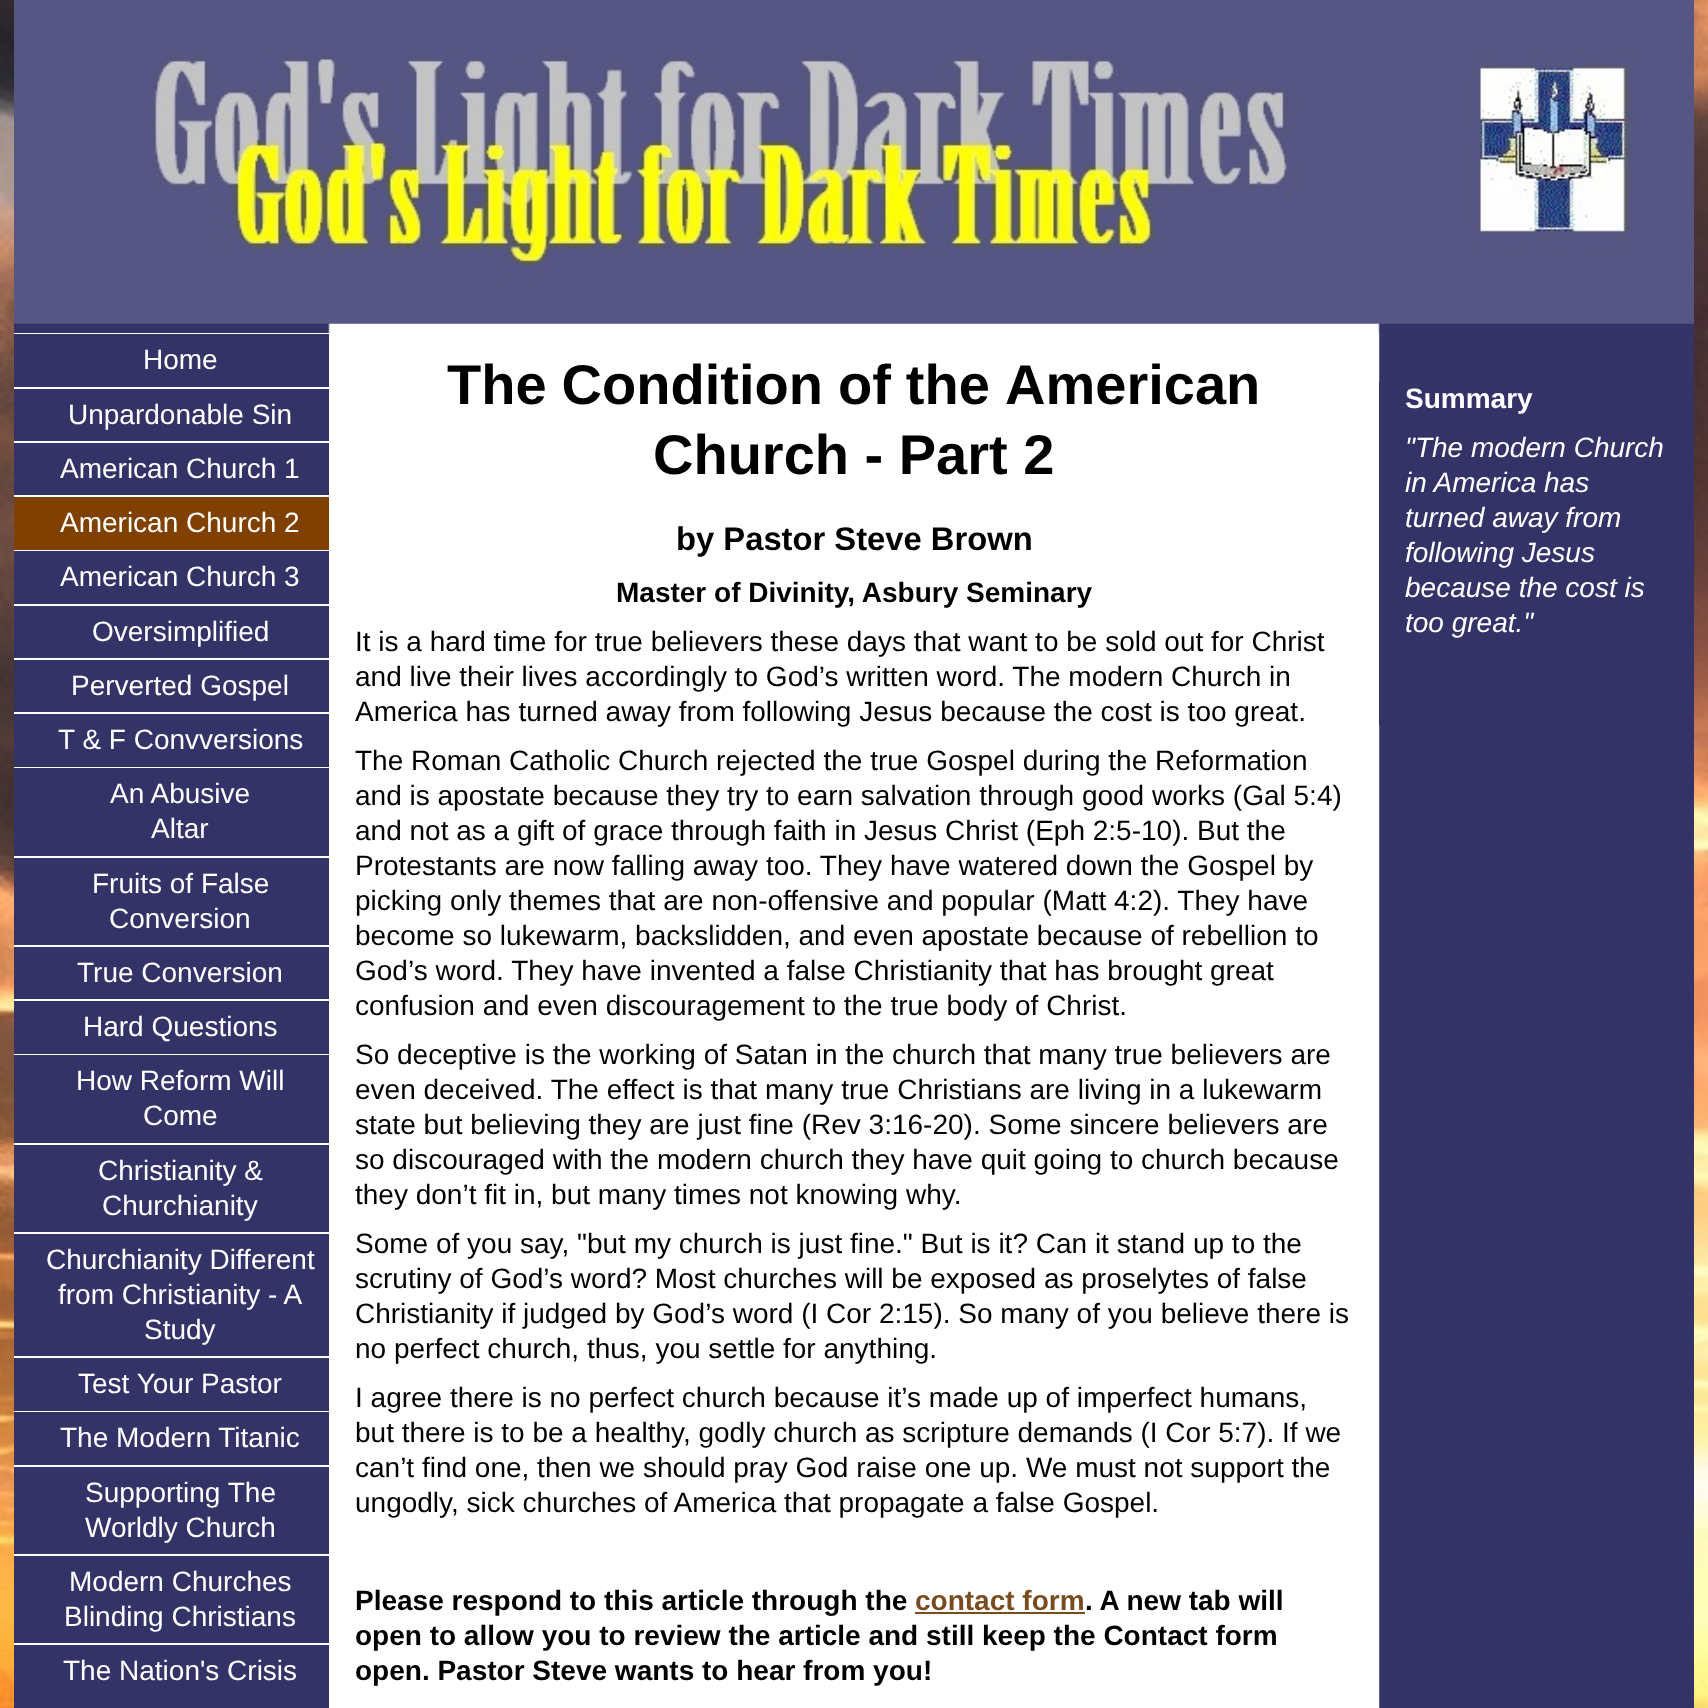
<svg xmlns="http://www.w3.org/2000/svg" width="1708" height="1708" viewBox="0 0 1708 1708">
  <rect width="100%" height="100%" fill="#fff"/>
  <image x="0" y="0" width="1708" height="1708" href="img/1.png"/>
  <image x="14" y="323" width="1680" height="1385" href="img/2.png"/>
  <image x="14" y="0" width="1680" height="324" href="img/3.png"/>
  <path d="M14 333h315v1H14z" fill="#fff"/>
  <path d="M14 387h315v2H14z" fill="#fff"/>
  <path d="M328 334h1v53H328z" fill="#336"/>
  <path d="M14 441h315v2H14z" fill="#fff"/>
  <path d="M328 389h1v52H328z" fill="#336"/>
  <path d="M14 495h315v2H14z" fill="#fff"/>
  <path d="M328 443h1v52H328z" fill="#336"/>
  <path d="M14 550h315v1H14z" fill="#fff"/>
  <path d="M14 497h315v53H14z" fill="#804000"/>
  <path d="M14 604h315v2H14z" fill="#fff"/>
  <path d="M328 551h1v53H328z" fill="#336"/>
  <path d="M14 658h315v2H14z" fill="#fff"/>
  <path d="M328 606h1v52H328z" fill="#336"/>
  <path d="M14 712h315v2H14z" fill="#fff"/>
  <path d="M328 660h1v52H328z" fill="#336"/>
  <path d="M14 767h315v1H14z" fill="#fff"/>
  <path d="M328 714h1v53H328z" fill="#336"/>
  <path d="M14 856h315v2H14z" fill="#fff"/>
  <path d="M328 768h1v88H328z" fill="#336"/>
  <path d="M14 945h315v2H14z" fill="#fff"/>
  <path d="M328 858h1v87H328z" fill="#336"/>
  <path d="M14 999h315v2H14z" fill="#fff"/>
  <path d="M328 947h1v52H328z" fill="#336"/>
  <path d="M14 1054h315v1H14z" fill="#fff"/>
  <path d="M328 1001h1v53H328z" fill="#336"/>
  <path d="M14 1143h315v2H14z" fill="#fff"/>
  <path d="M328 1055h1v88H328z" fill="#336"/>
  <path d="M14 1232h315v2H14z" fill="#fff"/>
  <path d="M328 1145h1v87H328z" fill="#336"/>
  <path d="M14 1356h315v2H14z" fill="#fff"/>
  <path d="M328 1234h1v122H328z" fill="#336"/>
  <path d="M14 1411h315v1H14z" fill="#fff"/>
  <path d="M328 1358h1v53H328z" fill="#336"/>
  <path d="M14 1465h315v2H14z" fill="#fff"/>
  <path d="M328 1412h1v53H328z" fill="#336"/>
  <path d="M14 1554h315v2H14z" fill="#fff"/>
  <path d="M328 1467h1v87H328z" fill="#336"/>
  <path d="M14 1643h315v2H14z" fill="#fff"/>
  <path d="M328 1556h1v87H328z" fill="#336"/>
  <path d="M328 1645h1v63H328z" fill="#336"/>
  <path d="M329 333h1050v1375H329z" fill="#fff"/>
  <path d="M915 1612h170v2H915z" fill="#794c20"/>
  <path d="M1379 382h1v343H1379z" fill="#336"/>
  <g font-family="Liberation Sans" font-size="28" fill="#fff">
    <text x="143" y="369">Home</text>
    <text x="68" y="424">Unpardonable Sin</text>
    <text x="60" y="478">American Church 1</text>
    <text x="60" y="532">American Church 2</text>
    <text x="60" y="586">American Church 3</text>
    <text x="92" y="641">Oversimplified</text>
    <text x="71" y="695">Perverted Gospel</text>
    <text x="58" y="749">T &amp; F Convversions</text>
    <text x="110" y="803">An Abusive</text>
    <text x="151" y="838">Altar</text>
    <text x="92" y="893">Fruits of False</text>
    <text x="109" y="928">Conversion</text>
    <text x="77" y="982">True Conversion</text>
    <text x="83" y="1036">Hard Questions</text>
    <text x="76" y="1090">How Reform Will</text>
    <text x="143" y="1125">Come</text>
    <text x="98" y="1180">Christianity &amp;</text>
    <text x="102" y="1215">Churchianity</text>
    <text x="46" y="1269">Churchianity Different</text>
    <text x="58" y="1304">from Christianity - A</text>
    <text x="144" y="1339">Study</text>
    <text x="78" y="1393">Test Your Pastor</text>
    <text x="60" y="1447">The Modern Titanic</text>
    <text x="85" y="1502">Supporting The</text>
    <text x="85" y="1537">Worldly Church</text>
    <text x="69" y="1591">Modern Churches</text>
    <text x="64" y="1626">Blinding Christians</text>
    <text x="63" y="1680">The Nation's Crisis</text>
  </g>
  <g font-family="Liberation Sans" font-size="56" font-weight="bold" fill="#000">
    <text x="447" y="404" word-spacing="-0.5">The Condition of the</text>
    <text x="1005" y="404">American</text>
    <text x="653" y="474">Church - Part 2</text>
  </g>
  <text x="676" y="550" font-family="Liberation Sans" font-size="32.75" font-weight="bold" fill="#000">by Pastor Steve Brown</text>
  <text x="616" y="602" font-family="Liberation Sans" font-size="28" font-weight="bold" fill="#000">Master of Divinity, Asbury Seminary</text>
  <g font-family="Liberation Sans" font-size="28" fill="#000">
    <text x="355" y="651">It is a hard time for true believers these days that want to be sold out for Christ</text>
    <text x="355" y="686">and live their lives accordingly to God’s written word. The modern Church in</text>
    <text x="355" y="721">America has turned away from following Jesus because the cost is too great.</text>
    <text x="355" y="770">The Roman Catholic Church rejected the true Gospel during the Reformation</text>
    <text x="355" y="805">and is apostate because they try to earn salvation through good works (Gal 5:4)</text>
    <text x="355" y="840">and not as a gift of grace through faith in Jesus Christ (Eph 2:5-10). But the</text>
    <text x="355" y="875">Protestants are now falling away too. They have watered down the Gospel by</text>
    <text x="355" y="910">picking only themes that are non-offensive and popular (Matt 4:2). They have</text>
    <text x="355" y="945">become so lukewarm, backslidden, and even apostate because of rebellion to</text>
    <text x="355" y="980">God’s word. They have invented a false Christianity that has brought great</text>
    <text x="355" y="1015">confusion and even discouragement to the true body of Christ.</text>
    <text x="355" y="1064">So deceptive is the working of Satan in the church that many true believers are</text>
    <text x="355" y="1099">even deceived. The effect is that many true Christians are living in a lukewarm</text>
    <text x="355" y="1134">state but believing they are just fine (Rev 3:16-20). Some sincere believers are</text>
    <text x="355" y="1169">so discouraged with the modern church they have quit going to church because</text>
    <text x="355" y="1204">they don’t fit in, but many times not knowing why.</text>
    <text x="355" y="1253">Some of you say, "but my church is just fine." But is it? Can it stand up to the</text>
    <text x="355" y="1288">scrutiny of God’s word? Most churches will be exposed as proselytes of false</text>
    <text x="355" y="1323">Christianity if judged by God’s word (I Cor 2:15). So many of you believe there is</text>
    <text x="355" y="1358">no perfect church, thus, you settle for anything.</text>
    <text x="355" y="1407">I agree there is no perfect church because it’s made up of imperfect humans,</text>
    <text x="355" y="1442">but there is to be a healthy, godly church as scripture demands (I Cor 5:7). If we</text>
    <text x="355" y="1477">can’t find one, then we should pray God raise one up. We must not support the</text>
    <text x="355" y="1512">ungodly, sick churches of America that propagate a false Gospel.</text>
  </g>
  <text x="355" y="1610" font-family="Liberation Sans" font-size="28" font-weight="bold" fill="#000">Please respond to this article through the</text>
  <text x="915" y="1610" font-family="Liberation Sans" font-size="28" font-weight="bold" fill="#794c20">contact form</text>
  <g font-family="Liberation Sans" font-size="28" font-weight="bold" fill="#000">
    <text x="1085" y="1610">. A new tab will</text>
    <text x="355" y="1645">open to allow you to review the article and still keep the Contact form</text>
    <text x="355" y="1680">open. Pastor Steve wants to hear from you!</text>
  </g>
  <text x="1405" y="408" font-family="Liberation Sans" font-size="28" font-weight="bold" fill="#fff">Summary</text>
  <g font-family="Liberation Sans" font-size="28" font-style="italic" fill="#fff">
    <text x="1405" y="457">"The modern Church</text>
    <text x="1405" y="492">in America has</text>
    <text x="1405" y="527">turned away from</text>
    <text x="1405" y="562">following Jesus</text>
    <text x="1405" y="597">because the cost is</text>
    <text x="1405" y="632">too great."</text>
  </g>
</svg>
